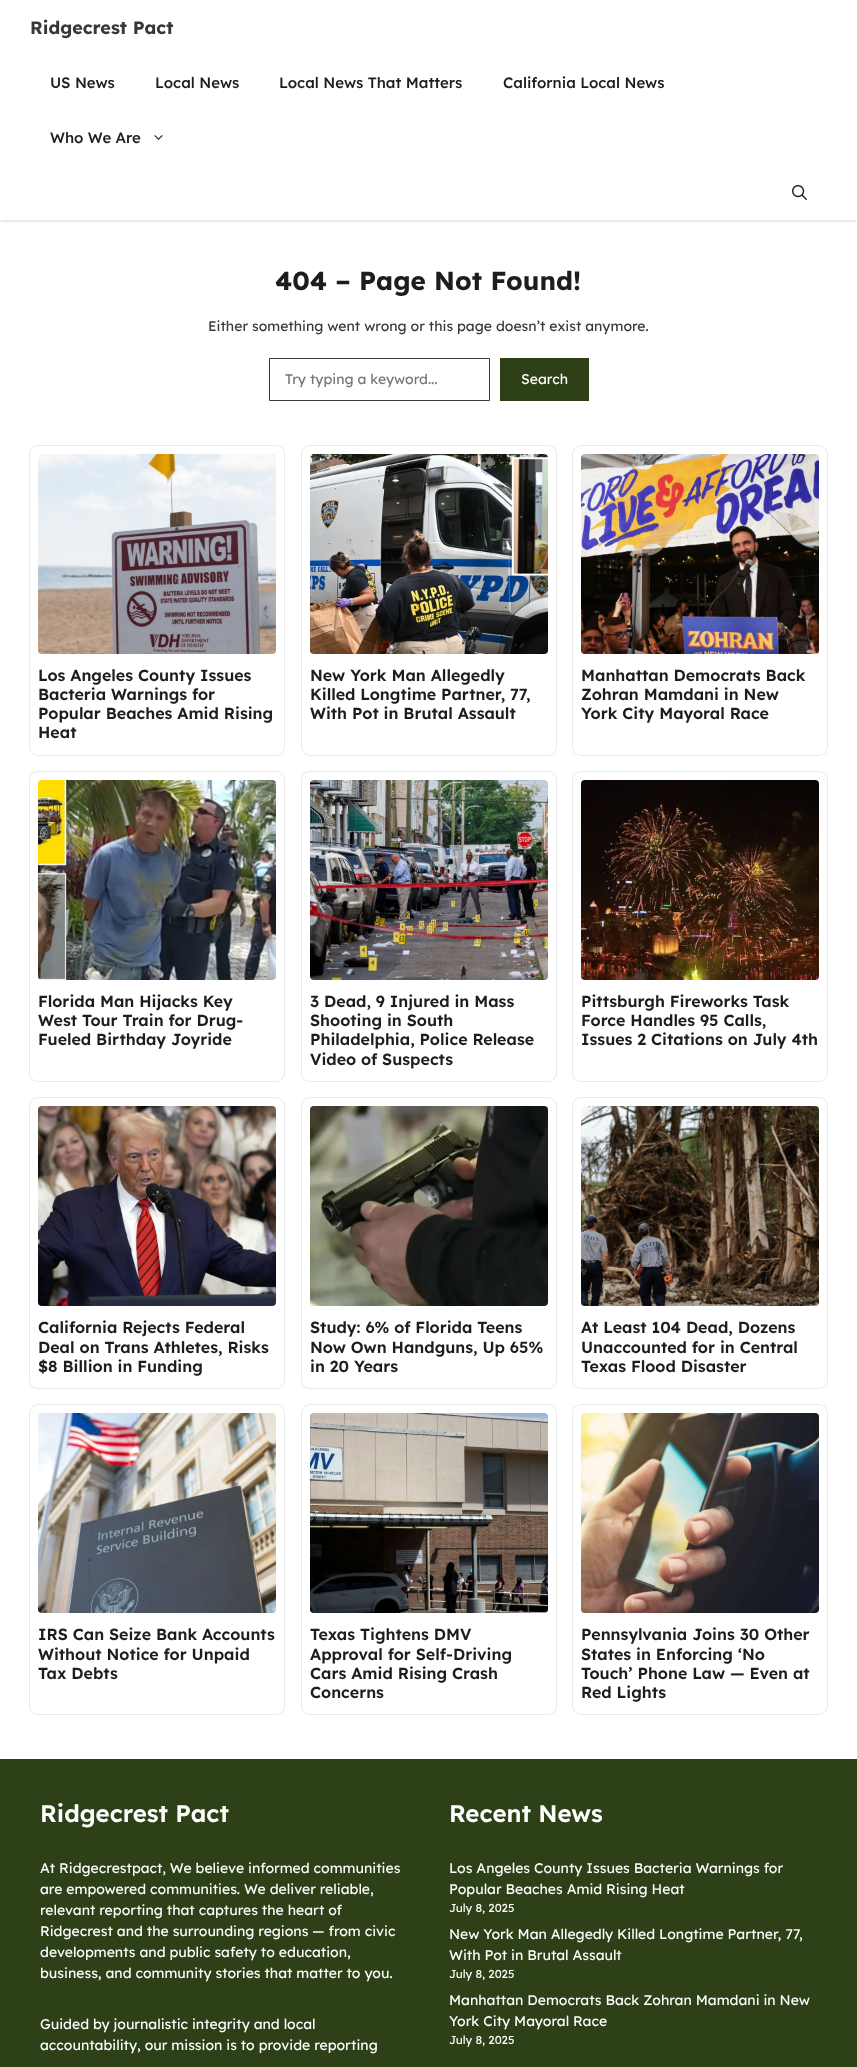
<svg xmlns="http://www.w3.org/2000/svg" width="857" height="2067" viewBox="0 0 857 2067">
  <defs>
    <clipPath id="clip1"><path d="M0 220h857v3H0z"/></clipPath>
  </defs>
  <rect width="100%" height="100%" fill="#fff"/>
  <g clip-path="url(#clip1)">
    <path d="M0 1h857v220H0z" fill="#00000029" filter="blur(2px)"/>
  </g>
  <image x="154" y="135" width="9" height="5" href="img/1.png"/>
  <image x="792" y="185" width="15" height="15" href="img/2.png"/>
  <path d="M269.5 358.5h220v42H269.5z" fill="none" stroke="#383838"/>
  <path d="M500 358h89v43H500z" fill="#2d4018"/>
  <rect x="29.5" y="445.5" width="255" height="310" rx="8.5" fill="none" stroke="#ebebeb"/>
  <image x="38" y="454" width="238" height="200" href="img/3.png"/>
  <rect x="301.5" y="445.5" width="255" height="310" rx="8.5" fill="none" stroke="#eaeaea"/>
  <image x="310" y="454" width="238" height="200" href="img/4.png"/>
  <rect x="572.5" y="445.5" width="255" height="310" rx="8.5" fill="none" stroke="#eaeaea"/>
  <image x="581" y="454" width="238" height="200" href="img/5.png"/>
  <rect x="29.5" y="771.5" width="255" height="310" rx="8.5" fill="none" stroke="#eaeaea"/>
  <image x="38" y="780" width="238" height="200" href="img/6.png"/>
  <rect x="301.5" y="771.5" width="255" height="310" rx="8.5" fill="none" stroke="#eaeaea"/>
  <image x="310" y="780" width="238" height="200" href="img/7.png"/>
  <rect x="572.5" y="771.5" width="255" height="310" rx="8.5" fill="none" stroke="#eaeaea"/>
  <image x="581" y="780" width="238" height="200" href="img/8.png"/>
  <rect x="29.5" y="1097.5" width="255" height="291" rx="8.5" fill="none" stroke="#eaeaea"/>
  <image x="38" y="1106" width="238" height="200" href="img/9.png"/>
  <rect x="301.5" y="1097.5" width="255" height="291" rx="8.5" fill="none" stroke="#eaeaea"/>
  <image x="310" y="1106" width="238" height="200" href="img/10.png"/>
  <rect x="572.5" y="1097.5" width="255" height="291" rx="8.5" fill="none" stroke="#eaeaea"/>
  <image x="581" y="1106" width="238" height="200" href="img/11.png"/>
  <rect x="29.5" y="1404.5" width="255" height="310" rx="8.5" fill="none" stroke="#eaeaea"/>
  <image x="38" y="1413" width="238" height="200" href="img/12.png"/>
  <rect x="301.5" y="1404.5" width="255" height="310" rx="8.5" fill="none" stroke="#eaeaea"/>
  <image x="310" y="1413" width="238" height="200" href="img/13.png"/>
  <rect x="572.5" y="1404.5" width="255" height="310" rx="8.5" fill="none" stroke="#eaeaea"/>
  <image x="581" y="1413" width="238" height="200" href="img/14.png"/>
  <path d="M0 1759h857v308H0z" fill="#2d4018"/>
  <text x="30" y="34" font-family="Lexend Deca" font-size="18" font-weight="bold" fill="#383838">Ridgecrest Pact</text>
  <g font-family="Lexend Deca" font-size="15" font-weight="500" fill="#1d1d1d">
    <text x="50" y="88">US News</text>
    <text x="155" y="88">Local News</text>
    <text x="279" y="88">Local News That Matters</text>
    <text x="503" y="88">California Local News</text>
    <text x="50" y="143">Who We Are</text>
  </g>
  <text x="275" y="290" font-family="Lexend Deca" font-size="26" font-weight="bold" fill="#1d1d1d">404 – Page Not Found!</text>
  <text x="208" y="331" font-family="Lexend Deca" font-size="14" fill="#383838">Either something went wrong or this page doesn’t exist anymore.</text>
  <text x="285" y="384" font-family="Lexend Deca" font-size="14" fill="#757575">Try typing a keyword...</text>
  <text x="521" y="384" font-family="Lexend Deca" font-size="14" fill="#fff">Search</text>
  <g font-family="Lexend Deca" font-size="16" font-weight="600" fill="#1d1d1d">
    <text x="38" y="681">Los Angeles County Issues</text>
    <text x="38" y="700">Bacteria Warnings for</text>
    <text x="38" y="719">Popular Beaches Amid Rising</text>
    <text x="38" y="738">Heat</text>
    <text x="310" y="681">New York Man Allegedly</text>
    <text x="310" y="700">Killed Longtime Partner, 77,</text>
    <text x="310" y="719">With Pot in Brutal Assault</text>
    <text x="581" y="681">Manhattan Democrats Back</text>
    <text x="581" y="700">Zohran Mamdani in New</text>
    <text x="581" y="719">York City Mayoral Race</text>
    <text x="38" y="1007">Florida Man Hijacks Key</text>
    <text x="38" y="1026">West Tour Train for Drug-</text>
    <text x="38" y="1045">Fueled Birthday Joyride</text>
    <text x="310" y="1007">3 Dead, 9 Injured in Mass</text>
    <text x="310" y="1026">Shooting in South</text>
    <text x="310" y="1045">Philadelphia, Police Release</text>
    <text x="310" y="1065">Video of Suspects</text>
    <text x="581" y="1007">Pittsburgh Fireworks Task</text>
    <text x="581" y="1026">Force Handles 95 Calls,</text>
    <text x="581" y="1045">Issues 2 Citations on July 4th</text>
    <text x="38" y="1333">California Rejects Federal</text>
    <text x="38" y="1353">Deal on Trans Athletes, Risks</text>
    <text x="38" y="1372">$8 Billion in Funding</text>
    <text x="310" y="1333">Study: 6% of Florida Teens</text>
    <text x="310" y="1353">Now Own Handguns, Up 65%</text>
    <text x="310" y="1372">in 20 Years</text>
    <text x="581" y="1333">At Least 104 Dead, Dozens</text>
    <text x="581" y="1353">Unaccounted for in Central</text>
    <text x="581" y="1372">Texas Flood Disaster</text>
    <text x="38" y="1640">IRS Can Seize Bank Accounts</text>
    <text x="38" y="1660">Without Notice for Unpaid</text>
    <text x="38" y="1679">Tax Debts</text>
    <text x="310" y="1640">Texas Tightens DMV</text>
    <text x="310" y="1660">Approval for Self-Driving</text>
    <text x="310" y="1679">Cars Amid Rising Crash</text>
    <text x="310" y="1698">Concerns</text>
    <text x="581" y="1640">Pennsylvania Joins 30 Other</text>
    <text x="581" y="1660">States in Enforcing ‘No</text>
    <text x="581" y="1679">Touch’ Phone Law — Even at</text>
    <text x="581" y="1698">Red Lights</text>
  </g>
  <text x="40" y="1822" font-family="Lexend Deca" font-size="24" font-weight="600" fill="#fff">Ridgecrest Pact</text>
  <g font-family="Lexend Deca" font-size="14" fill="#fff">
    <text x="40" y="1873">At Ridgecrestpact, We believe informed communities</text>
    <text x="40" y="1894">are empowered communities. We deliver reliable,</text>
    <text x="40" y="1915">relevant reporting that captures the heart of</text>
    <text x="40" y="1936">Ridgecrest and the surrounding regions — from civic</text>
    <text x="40" y="1957">developments and public safety to education,</text>
    <text x="40" y="1978">business, and community stories that matter to you.</text>
    <text x="40" y="2029">Guided by journalistic integrity and local</text>
    <text x="40" y="2050">accountability, our mission is to provide reporting</text>
  </g>
  <text x="449" y="1822" font-family="Lexend Deca" font-size="24" font-weight="600" fill="#fff">Recent News</text>
  <g font-family="Lexend Deca" font-size="14" fill="#fff">
    <text x="449" y="1873">Los Angeles County Issues Bacteria Warnings for</text>
    <text x="449" y="1894">Popular Beaches Amid Rising Heat</text>
  </g>
  <text x="449" y="1912" font-family="Lexend Deca" font-size="11.5" fill="#fff">July 8, 2025</text>
  <g font-family="Lexend Deca" font-size="14" fill="#fff">
    <text x="449" y="1939">New York Man Allegedly Killed Longtime Partner, 77,</text>
    <text x="449" y="1960">With Pot in Brutal Assault</text>
  </g>
  <text x="449" y="1978" font-family="Lexend Deca" font-size="11.5" fill="#fff">July 8, 2025</text>
  <g font-family="Lexend Deca" font-size="14" fill="#fff">
    <text x="449" y="2005">Manhattan Democrats Back Zohran Mamdani in New</text>
    <text x="449" y="2026">York City Mayoral Race</text>
  </g>
  <text x="449" y="2044" font-family="Lexend Deca" font-size="11.5" fill="#fff">July 8, 2025</text>
</svg>
